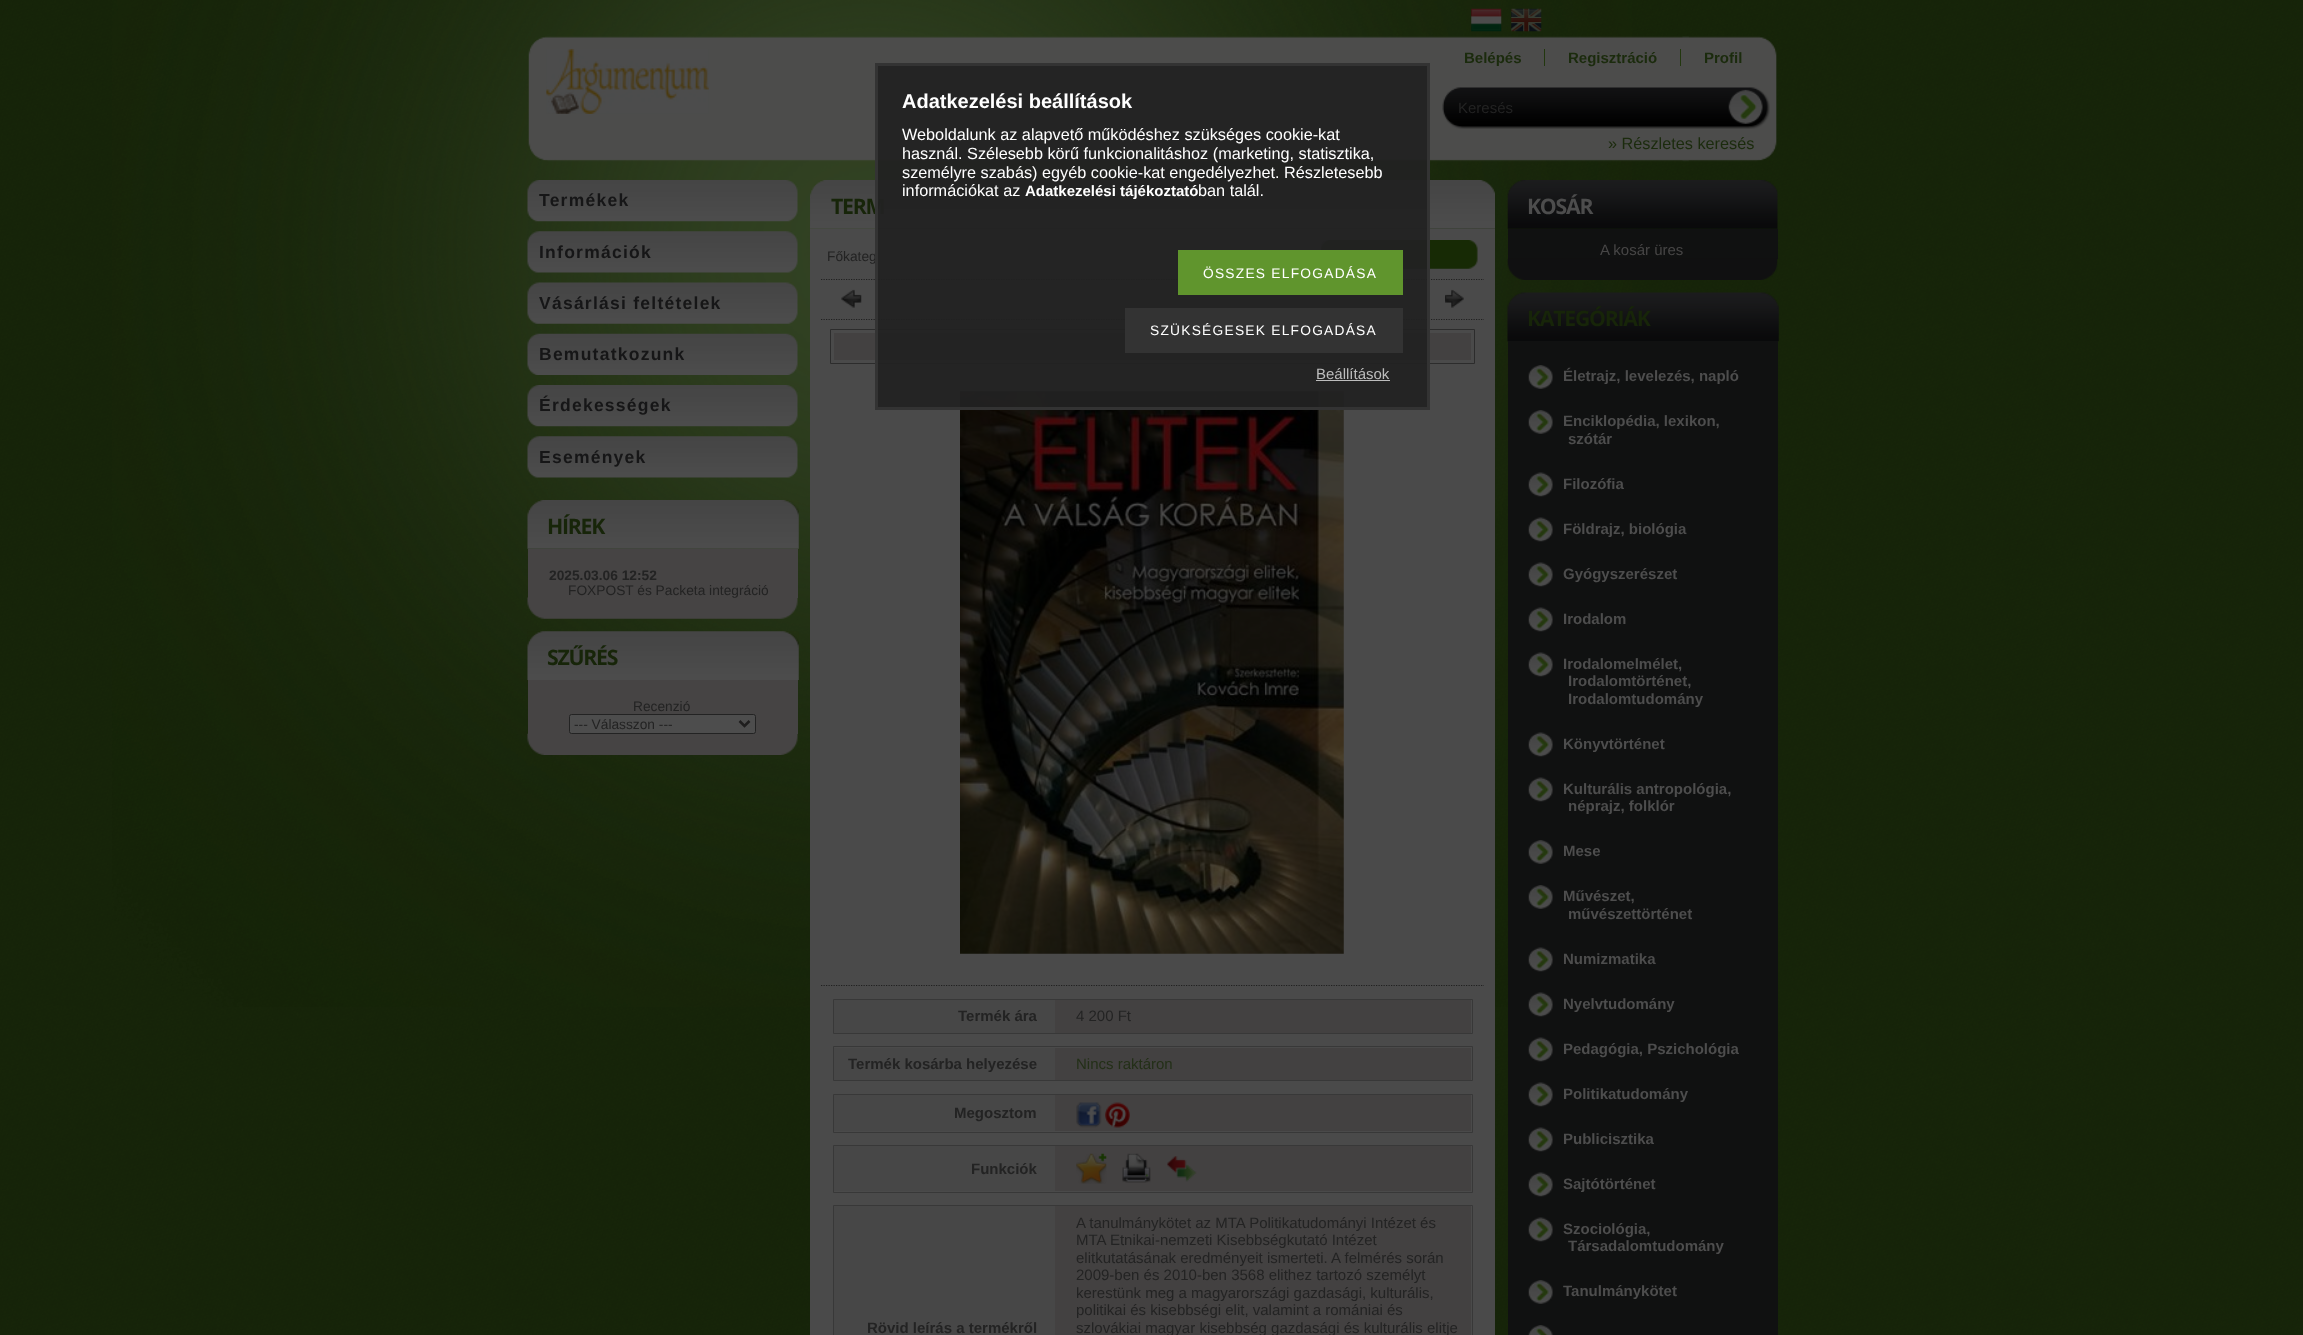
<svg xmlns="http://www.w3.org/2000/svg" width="2303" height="1335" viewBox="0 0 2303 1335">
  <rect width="100%" height="100%" fill="#fff"/>
  <image x="0" y="0" width="2303" height="1335" href="img/1.png"/>
  <image x="112" y="0" width="1520" height="1007" href="img/2.png"/>
  <image x="1471" y="8" width="31" height="24" href="img/3.png"/>
  <image x="1511" y="8" width="31" height="24" href="img/4.png"/>
  <image x="528" y="36" width="1249" height="126" href="img/5.png"/>
  <image x="546" y="48" width="163" height="66" href="img/6.png"/>
  <path d="M1544 49h1v17H1544z" fill="#22370e"/>
  <path d="M1680 49h1v17H1680z" fill="#22370e"/>
  <image x="1442" y="87" width="328" height="42" href="img/7.png"/>
  <image x="527" y="180" width="271" height="42" href="img/8.png"/>
  <image x="527" y="231" width="271" height="42" href="img/9.png"/>
  <image x="527" y="282" width="271" height="42" href="img/10.png"/>
  <image x="527" y="333" width="271" height="42" href="img/11.png"/>
  <image x="527" y="385" width="271" height="42" href="img/12.png"/>
  <image x="527" y="436" width="271" height="42" href="img/13.png"/>
  <image x="527" y="500" width="272" height="49" href="img/14.png"/>
  <image x="527" y="597" width="271" height="22" href="img/15.png"/>
  <path d="M528 549h270v49H528z" fill="#464444"/>
  <image x="527" y="631" width="272" height="49" href="img/16.png"/>
  <image x="527" y="733" width="271" height="22" href="img/17.png"/>
  <path d="M528 680h270v54H528z" fill="#464444"/>
  <rect x="569.5" y="714.5" width="186" height="19" rx="2" fill="#4d4d4d" stroke="#232323"/>
  <path d="M739.5 721L744.5 726L749.5 721" fill="none" stroke="#1f1e1e" stroke-width="2.5"/>
  <image x="810" y="180" width="685" height="49" href="img/18.png"/>
  <path d="M810 229h685v1106H810z" fill="#4a4a4a"/>
  <image x="1321" y="240" width="157" height="29" href="img/19.png"/>
  <path d="M821 279.5H1484" fill="none" stroke="#202020" stroke-width="1.2" stroke-dasharray="1.25 1.25"/>
  <image x="841" y="289" width="21" height="19" href="img/20.png"/>
  <image x="1445" y="289" width="19" height="19" href="img/21.png"/>
  <path d="M821 319.5H1484" fill="none" stroke="#202020" stroke-width="1.2" stroke-dasharray="1.25 1.25"/>
  <path d="M830.5 329.5h644v34H830.5z" fill="none" stroke="#2c2c2c"/>
  <path d="M834 333h637v27H834z" fill="#434141"/>
  <image x="960" y="391" width="384" height="563" href="img/22.png"/>
  <path d="M821 985.5H1484" fill="none" stroke="#202020" stroke-width="1.2" stroke-dasharray="1.25 1.25"/>
  <path d="M833.5 999.5h639v34H833.5z" fill="none" stroke="#383838"/>
  <path d="M834 1000h221v33H834z" fill="#474747"/>
  <path d="M1055 1000h416v33H1055z" fill="#434141"/>
  <path d="M833.5 1046.5h639v34H833.5z" fill="none" stroke="#383838"/>
  <path d="M834 1048h221v32H834z" fill="#474747"/>
  <path d="M1055 1048h416v32H1055z" fill="#434141"/>
  <path d="M833.5 1094.5h639v38H833.5z" fill="none" stroke="#383838"/>
  <path d="M834 1095h221v36H834z" fill="#474747"/>
  <path d="M1055 1095h416v36H1055z" fill="#434141"/>
  <image x="1076" y="1102" width="26" height="26" href="img/23.png"/>
  <image x="1105" y="1102" width="25" height="26" href="img/24.png"/>
  <path d="M833.5 1145.5h639v47H833.5z" fill="none" stroke="#383838"/>
  <path d="M834 1146h221v45H834z" fill="#474747"/>
  <path d="M1055 1146h416v45H1055z" fill="#434141"/>
  <image x="1076" y="1153" width="31" height="31" href="img/25.png"/>
  <image x="1122" y="1153" width="29" height="30" href="img/26.png"/>
  <image x="1167" y="1156" width="30" height="26" href="img/27.png"/>
  <path d="M833.5 1205.5h639v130H833.5z" fill="none" stroke="#383838"/>
  <path d="M834 1206h221v129H834z" fill="#474747"/>
  <path d="M1055 1206h416v129H1055z" fill="#434141"/>
  <image x="1507" y="180" width="271" height="49" href="img/28.png"/>
  <path d="M1508 229h270v30H1508z" fill="#101111"/>
  <image x="1507" y="258" width="271" height="22" href="img/29.png"/>
  <image x="1507" y="292" width="272" height="50" href="img/30.png"/>
  <path d="M1508 341h270v994H1508z" fill="#101111"/>
  <image x="1528" y="365" width="25" height="24" href="img/31.png"/>
  <image x="1528" y="410" width="25" height="24" href="img/31.png"/>
  <image x="1528" y="472" width="25" height="25" href="img/32.png"/>
  <image x="1528" y="517" width="25" height="25" href="img/32.png"/>
  <image x="1528" y="562" width="25" height="25" href="img/32.png"/>
  <image x="1528" y="607" width="25" height="25" href="img/32.png"/>
  <image x="1528" y="652" width="25" height="25" href="img/32.png"/>
  <image x="1528" y="732" width="25" height="25" href="img/32.png"/>
  <image x="1528" y="777" width="25" height="25" href="img/33.png"/>
  <image x="1528" y="840" width="25" height="24" href="img/31.png"/>
  <image x="1528" y="885" width="25" height="24" href="img/31.png"/>
  <image x="1528" y="947" width="25" height="25" href="img/32.png"/>
  <image x="1528" y="992" width="25" height="25" href="img/32.png"/>
  <image x="1528" y="1037" width="25" height="25" href="img/32.png"/>
  <image x="1528" y="1082" width="25" height="25" href="img/32.png"/>
  <image x="1528" y="1127" width="25" height="25" href="img/32.png"/>
  <image x="1528" y="1172" width="25" height="25" href="img/33.png"/>
  <image x="1528" y="1217" width="25" height="25" href="img/32.png"/>
  <image x="1528" y="1280" width="25" height="24" href="img/31.png"/>
  <image x="1528" y="1325" width="25" height="10" href="img/34.png"/>
  <g font-family="Liberation Sans" font-size="15" font-weight="bold" fill="#1b2b0d">
    <text x="1464" y="63">Belépés</text>
    <text x="1568" y="63">Regisztráció</text>
    <text x="1704" y="63">Profil</text>
  </g>
  <text x="1458" y="113" font-family="Liberation Sans" font-size="15" fill="#232323">Keresés</text>
  <text x="1608" y="149" font-family="Liberation Sans" font-size="16.25" fill="#1b2b0d">» Részletes keresés</text>
  <g font-family="Liberation Sans" font-size="17.5" font-weight="bold" letter-spacing="1.25" fill="#161617">
    <text x="539" y="206">Termékek</text>
    <text x="539" y="258">Információk</text>
    <text x="539" y="309">Vásárlási feltételek</text>
    <text x="539" y="360">Bemutatkozunk</text>
    <text x="539" y="411">Érdekességek</text>
    <text x="539" y="463">Események</text>
  </g>
  <text x="547" y="534" font-family="Open Sans" font-size="21.25" font-weight="bold" letter-spacing="-1.25" fill="#172509">HÍREK</text>
  <text x="549" y="580" font-family="Liberation Sans" font-size="13.75" font-weight="bold" fill="#232323">2025.03.06 12:52</text>
  <text x="568" y="595" font-family="Liberation Sans" font-size="13.75" fill="#232323">FOXPOST és Packeta integráció</text>
  <text x="547" y="665" font-family="Open Sans" font-size="21.25" font-weight="bold" letter-spacing="-1.25" fill="#172509">SZŰRÉS</text>
  <g font-family="Liberation Sans" font-size="13.75" fill="#232323">
    <text x="633" y="711">Recenzió</text>
    <text x="574" y="729">--- Válasszon ---</text>
  </g>
  <text x="831" y="214" font-family="Open Sans" font-size="21.25" font-weight="bold" letter-spacing="-1.25" fill="#172509">TERM</text>
  <text x="827" y="261" font-family="Liberation Sans" font-size="13.75" fill="#232323">Főkateg</text>
  <text x="958" y="1021" font-family="Liberation Sans" font-size="15" font-weight="bold" fill="#232323">Termék ára</text>
  <text x="1076" y="1021" font-family="Liberation Sans" font-size="15" fill="#232323">4 200 Ft</text>
  <text x="848" y="1069" font-family="Liberation Sans" font-size="15" font-weight="bold" fill="#232323">Termék kosárba helyezése</text>
  <text x="1076" y="1069" font-family="Liberation Sans" font-size="15" fill="#232f17">Nincs raktáron</text>
  <g font-family="Liberation Sans" font-size="15" font-weight="bold" fill="#232323">
    <text x="954" y="1118">Megosztom</text>
    <text x="971" y="1174">Funkciók</text>
    <text x="867" y="1333">Rövid leírás a termékről</text>
  </g>
  <g font-family="Liberation Sans" font-size="15" fill="#232323">
    <text x="1076" y="1228">A tanulmánykötet az MTA Politikatudományi Intézet és</text>
    <text x="1076" y="1245">MTA Etnikai-nemzeti Kisebbségkutató Intézet</text>
    <text x="1076" y="1263">elitkutatásának eredményeit ismerteti. A felmérés során</text>
    <text x="1076" y="1280">2009-ben és 2010-ben 3568 elithez tartozó személyt</text>
    <text x="1076" y="1298">kerestünk meg a magyarországi gazdasági, kulturális,</text>
    <text x="1076" y="1315">politikai és kisebbségi elit, valamint a romániai és</text>
    <text x="1076" y="1333">szlovákiai magyar kisebbség gazdasági és kulturális elitje</text>
  </g>
  <text x="1527" y="214" font-family="Open Sans" font-size="21.25" font-weight="bold" letter-spacing="-1.25" fill="#4d4d4d">KOSÁR</text>
  <text x="1600" y="255" font-family="Liberation Sans" font-size="15" fill="#474646">A kosár üres</text>
  <text x="1527" y="326" font-family="Open Sans" font-size="21.25" font-weight="bold" letter-spacing="-1.25" fill="#172509">KATEGÓRIÁK</text>
  <g font-family="Liberation Sans" font-size="15" font-weight="bold" fill="#4d4d4d">
    <text x="1563" y="381">Életrajz, levelezés, napló</text>
    <text x="1563" y="426">Enciklopédia, lexikon,</text>
    <text x="1568" y="444">szótár</text>
    <text x="1563" y="489">Filozófia</text>
    <text x="1563" y="534">Földrajz, biológia</text>
    <text x="1563" y="579">Gyógyszerészet</text>
    <text x="1563" y="624">Irodalom</text>
    <text x="1563" y="669">Irodalomelmélet,</text>
    <text x="1568" y="686">Irodalomtörténet,</text>
    <text x="1568" y="704">Irodalomtudomány</text>
    <text x="1563" y="749">Könyvtörténet</text>
    <text x="1563" y="794">Kulturális antropológia,</text>
    <text x="1568" y="811">néprajz, folklór</text>
    <text x="1563" y="856">Mese</text>
    <text x="1563" y="901">Művészet,</text>
    <text x="1568" y="919">művészettörténet</text>
    <text x="1563" y="964">Numizmatika</text>
    <text x="1563" y="1009">Nyelvtudomány</text>
    <text x="1563" y="1054">Pedagógia, Pszichológia</text>
    <text x="1563" y="1099">Politikatudomány</text>
    <text x="1563" y="1144">Publicisztika</text>
    <text x="1563" y="1189">Sajtótörténet</text>
    <text x="1563" y="1234">Szociológia,</text>
    <text x="1568" y="1251">Társadalomtudomány</text>
    <text x="1563" y="1296">Tanulmánykötet</text>
  </g>
  <path d="M876.5 64.5h552v344H876.5z" fill="#222222f2" stroke="#333" stroke-width="3"/>
  <text x="902" y="108" font-family="Liberation Sans" font-size="20" font-weight="bold" fill="#fff">Adatkezelési beállítások</text>
  <g font-family="Liberation Sans" font-size="16.25" fill="#fff">
    <text x="902" y="140">Weboldalunk az alapvető működéshez szükséges cookie-kat</text>
    <text x="902" y="159">használ. Szélesebb körű funkcionalitáshoz (marketing, statisztika,</text>
    <text x="902" y="178">személyre szabás) egyéb cookie-kat engedélyezhet. Részletesebb</text>
    <text x="902" y="196">információkat az</text>
  </g>
  <text x="1025" y="196" font-family="Liberation Sans" font-size="15" font-weight="bold" fill="#fff">Adatkezelési tájékoztató</text>
  <text x="1198" y="196" font-family="Liberation Sans" font-size="16.25" fill="#fff">ban talál.</text>
  <path d="M1178 250h225v45H1178z" fill="#60952d"/>
  <text x="1203" y="278" font-family="Liberation Sans" font-size="13.75" letter-spacing="1.25" fill="#fff">ÖSSZES ELFOGADÁSA</text>
  <path d="M1125 308h278v45H1125z" fill="#333"/>
  <text x="1150" y="335" font-family="Liberation Sans" font-size="13.75" letter-spacing="1.25" fill="#fff">SZÜKSÉGESEK ELFOGADÁSA</text>
  <text x="1316" y="379" font-family="Liberation Sans" font-size="15" fill="#bdbdbd">Beállítások</text>
  <path d="M1316 380h74v1H1316z" fill="#bdbdbd"/>
</svg>
